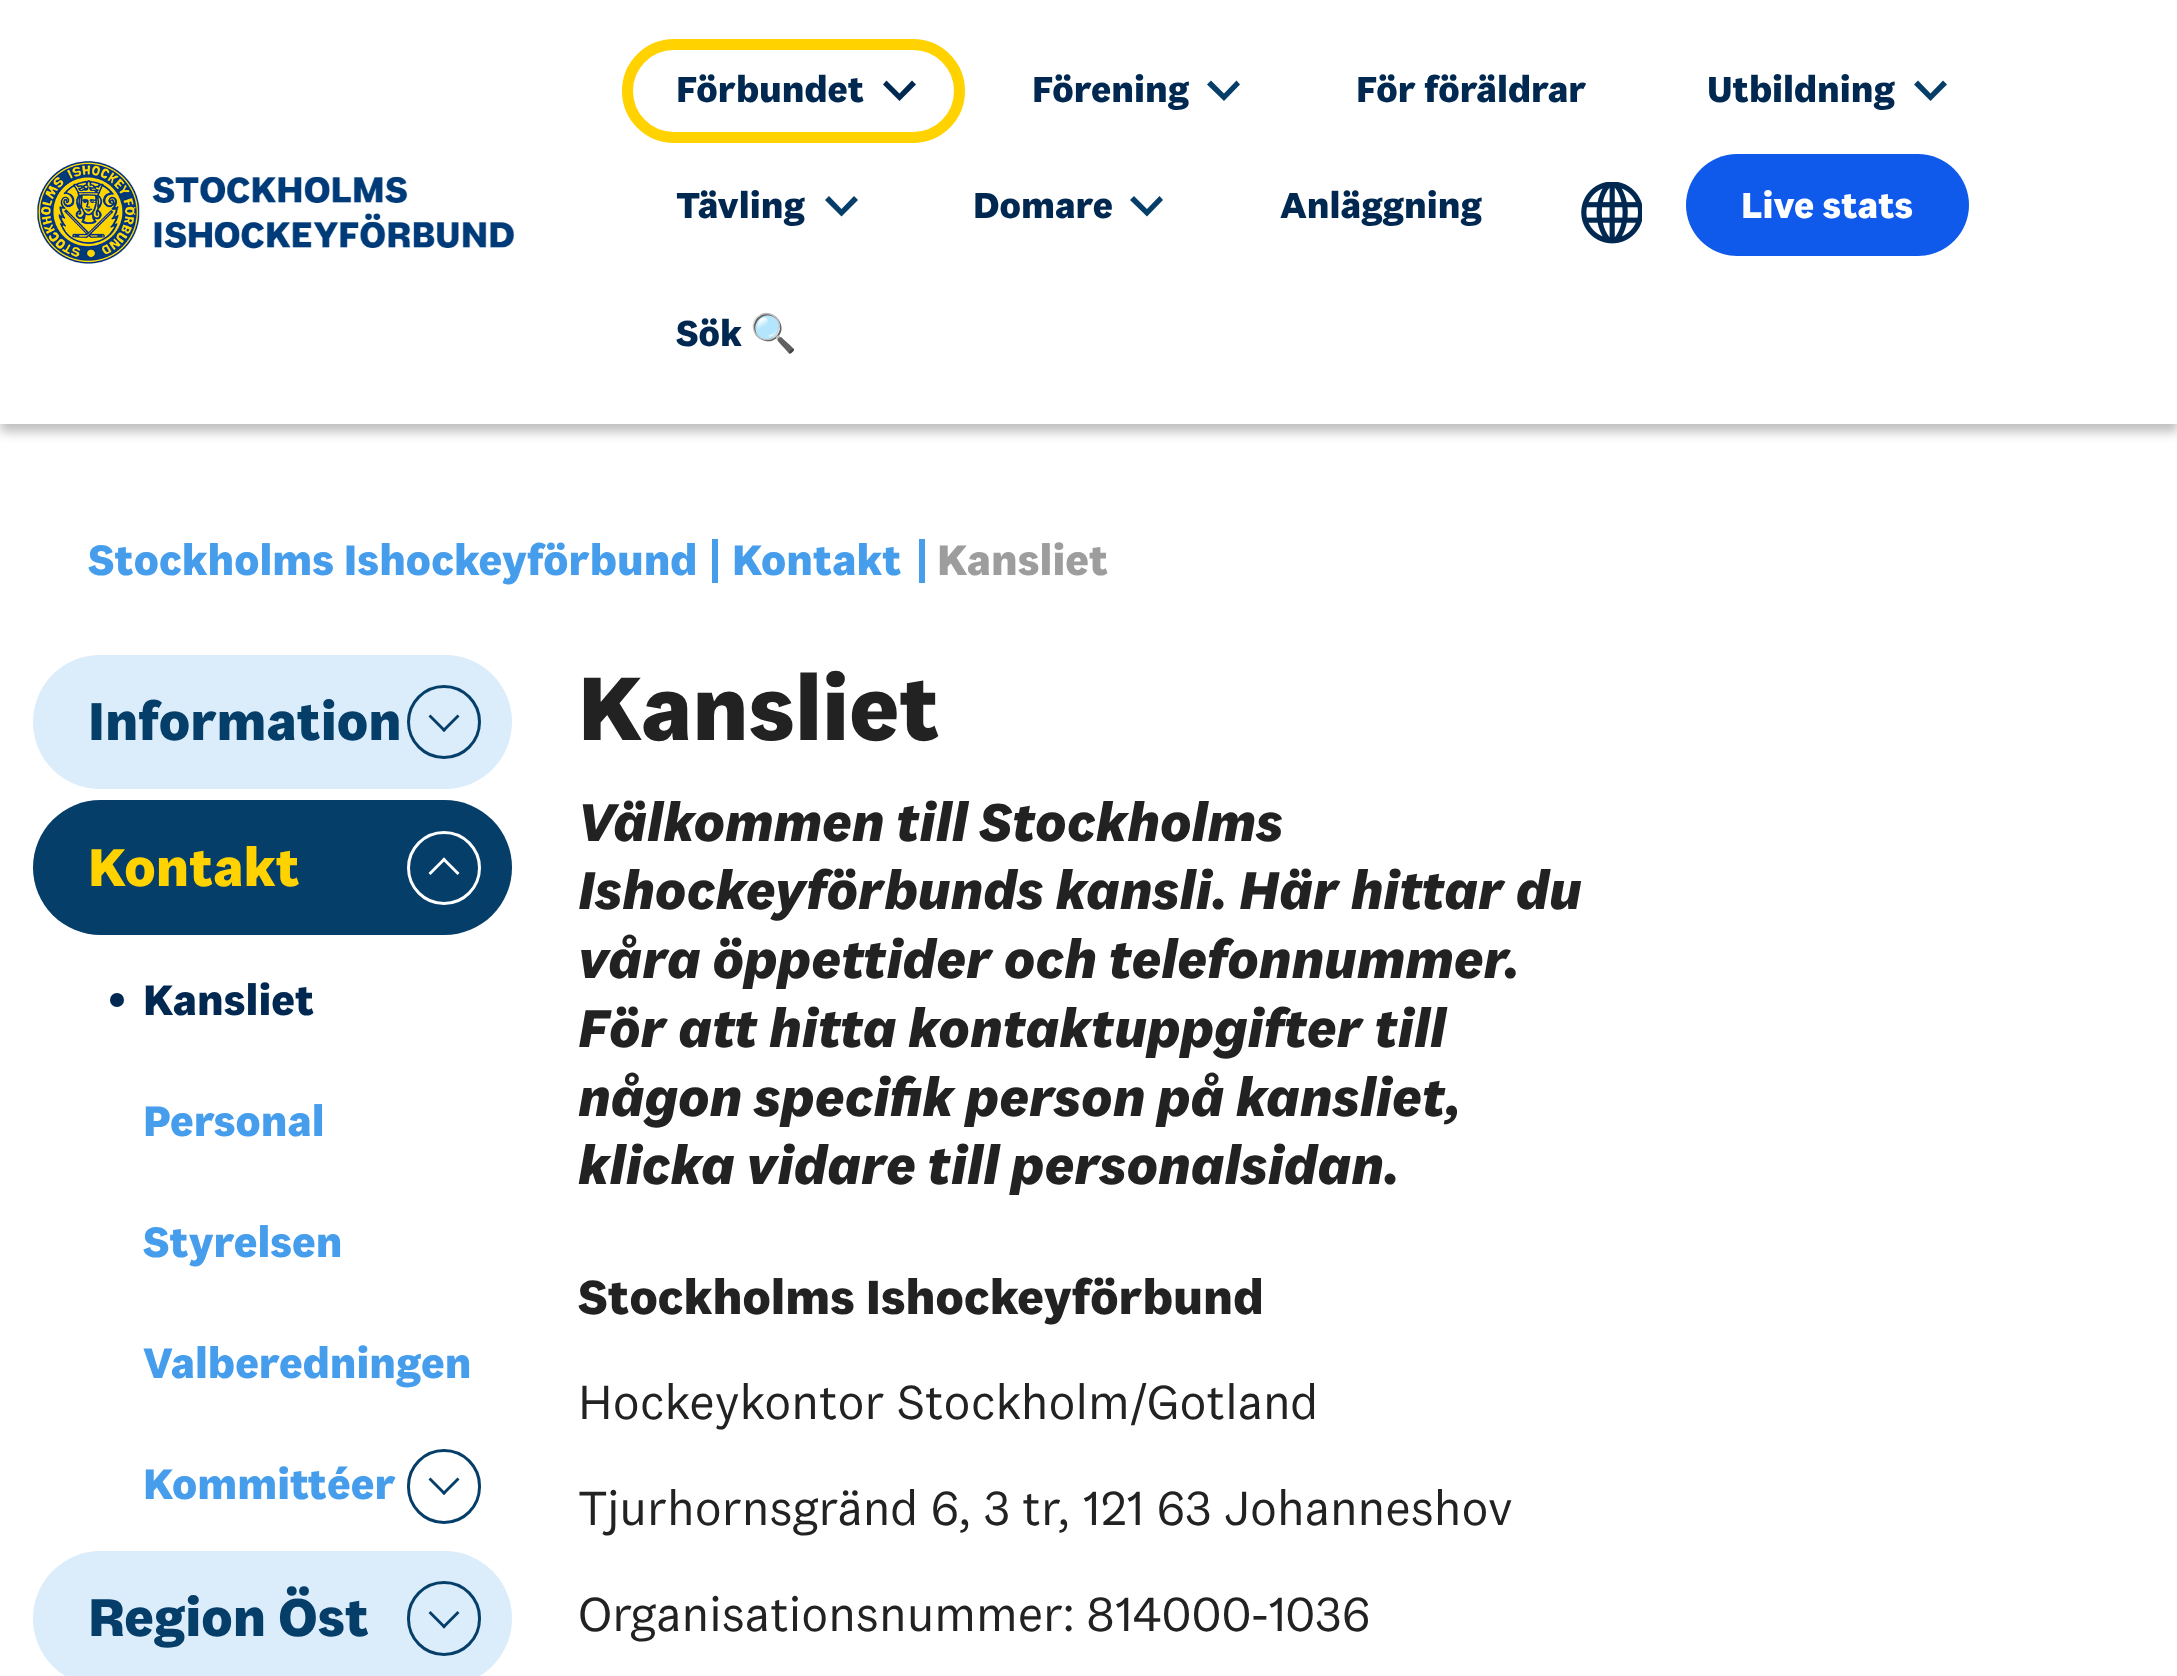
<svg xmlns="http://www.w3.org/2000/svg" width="2177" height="1676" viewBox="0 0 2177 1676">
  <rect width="100%" height="100%" fill="#fff"/>
  <path d="M0 8h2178v424H0z" fill="#00000040" filter="blur(5.5px)"/>
  <path d="M0 0h2177v424H0z" fill="#fff"/>
  <image x="37" y="161" width="478" height="103" href="img/1.png"/>
  <rect x="627.5" y="44.5" width="332" height="93" rx="46.5" fill="none" stroke="#ffd200" stroke-width="11"/>
  <path d="M883 84.5L886.5 80.5L899.5 93.5L912 80.5L916 84.5L899.5 101Z" fill="#002850"/>
  <path d="M1207 84.5L1211 80.5L1224 93.5L1236.5 80.5L1240 84.5L1224 101Z" fill="#053e69"/>
  <path d="M1914 84.5L1918 80.5L1930.5 93.5L1943 80.5L1947 84.5L1930.5 101Z" fill="#053e69"/>
  <path d="M825 200L829 196L841.5 209L854 196L858 200L841.5 216.5Z" fill="#053e69"/>
  <path d="M1130 200L1134 196L1147 209L1159.5 196L1163 200L1147 216.5Z" fill="#053e69"/>
  <image x="1581" y="182" width="61" height="62" href="img/2.png"/>
  <rect x="1686" y="154" width="283" height="102" rx="51" fill="#0f5aeb"/>
  <path d="M712 539h6v44H712z" fill="#459deb"/>
  <path d="M919 539h6v44H919z" fill="#459deb"/>
  <rect x="33" y="655" width="479" height="134" rx="67" fill="#dbecfb"/>
  <circle cx="444" cy="722" r="35.5" fill="none" stroke="#053e69" stroke-width="3"/>
  <path d="M442 730L457.5 714.5L459.5 716.5L444 732Z" fill="#053e69"/>
  <path d="M428.5 716.5L430.5 714.5L446 730L444 732Z" fill="#053e69"/>
  <rect x="33" y="800" width="479" height="135" rx="67.5" fill="#053e69"/>
  <circle cx="444" cy="868" r="35.5" fill="none" stroke="#fff" stroke-width="3"/>
  <path d="M446 859.5L430.5 875L428.5 873L444 857.5Z" fill="#fff"/>
  <path d="M459.5 873L457.5 875L442 859.5L444 857.5Z" fill="#fff"/>
  <circle cx="117" cy="1000" r="7" fill="#002850"/>
  <rect x="408.5" y="1450.5" width="71" height="72" rx="35.5" fill="none" stroke="#053e69" stroke-width="3"/>
  <path d="M442 1493L457.5 1477.5L459.5 1479.5L444 1495Z" fill="#053e69"/>
  <path d="M428.5 1479.5L430.5 1477.5L446 1493L444 1495Z" fill="#053e69"/>
  <rect x="33" y="1551" width="479" height="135" rx="67.5" fill="#dbecfb"/>
  <rect x="408.5" y="1582.5" width="71" height="72" rx="35.5" fill="none" stroke="#053e69" stroke-width="3"/>
  <path d="M442 1626.5L457.5 1611L459.5 1613L444 1628.5Z" fill="#053e69"/>
  <path d="M428.5 1613L430.5 1611L446 1626.5L444 1628.5Z" fill="#053e69"/>
  <g font-family="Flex" font-size="37.5" font-weight="bold" fill="#002850">
    <text x="676" y="102">Förbundet</text>
    <text x="1032" y="102">Förening</text>
    <text x="1356" y="102">För föräldrar</text>
    <text x="1707" y="102">Utbildning</text>
    <text x="676" y="218">Tävling</text>
    <text x="973" y="218">Domare</text>
    <text x="1280" y="218">Anläggning</text>
  </g>
  <text x="1741" y="218" font-family="Flex" font-size="37.5" font-weight="bold" fill="#fff">Live stats</text>
  <text x="676" y="346" font-family="Flex" font-size="37.5" font-weight="bold" fill="#002850">Sök</text>
  <text x="750" y="346" font-family="Noto Color Emoji" font-size="37.5" fill="#002850">🔍</text>
  <g font-family="Flex" font-size="44" font-weight="bold" fill="#459deb">
    <text x="88" y="575">Stockholms Ishockeyförbund</text>
    <text x="732" y="575">Kontakt</text>
  </g>
  <text x="937" y="575" font-family="Flex" font-size="44" font-weight="bold" fill="#9d9d9d">Kansliet</text>
  <text x="88" y="740" font-family="Flex" font-size="55" font-weight="bold" fill="#053e69">Information</text>
  <text x="88" y="886" font-family="Flex" font-size="55" font-weight="bold" fill="#ffd200">Kontakt</text>
  <text x="143" y="1015" font-family="Flex" font-size="44" font-weight="bold" fill="#002850">Kansliet</text>
  <g font-family="Flex" font-size="44" font-weight="bold" fill="#459deb">
    <text x="143" y="1136">Personal</text>
    <text x="143" y="1257">Styrelsen</text>
    <text x="143" y="1378">Valberedningen</text>
    <text x="143" y="1499">Kommittéer</text>
  </g>
  <text x="88" y="1636" font-family="Flex" font-size="55" font-weight="bold" fill="#053e69">Region Öst</text>
  <text x="578" y="740" font-family="Flex" font-size="93" font-weight="bold" fill="#222">Kansliet</text>
  <g font-family="Flex" font-size="55" font-weight="bold" font-style="italic" fill="#222">
    <text x="578" y="841">Välkommen till Stockholms</text>
    <text x="578" y="909">Ishockeyförbunds kansli. Här hittar du</text>
    <text x="578" y="978">våra öppettider och telefonnummer.</text>
    <text x="578" y="1047">För att hitta kontaktuppgifter till</text>
    <text x="578" y="1116">någon specifik person på kansliet,</text>
    <text x="578" y="1184">klicka vidare till personalsidan.</text>
  </g>
  <text x="578" y="1314" font-family="Flex" font-size="49.5" font-weight="bold" fill="#222">Stockholms Ishockeyförbund</text>
  <g font-family="Flex" font-size="49.5" fill="#222">
    <text x="578" y="1419">Hockeykontor Stockholm/Gotland</text>
    <text x="578" y="1525">Tjurhornsgränd 6, 3 tr, 121 63 Johanneshov</text>
    <text x="578" y="1631">Organisationsnummer: 814000-1036</text>
  </g>
</svg>
